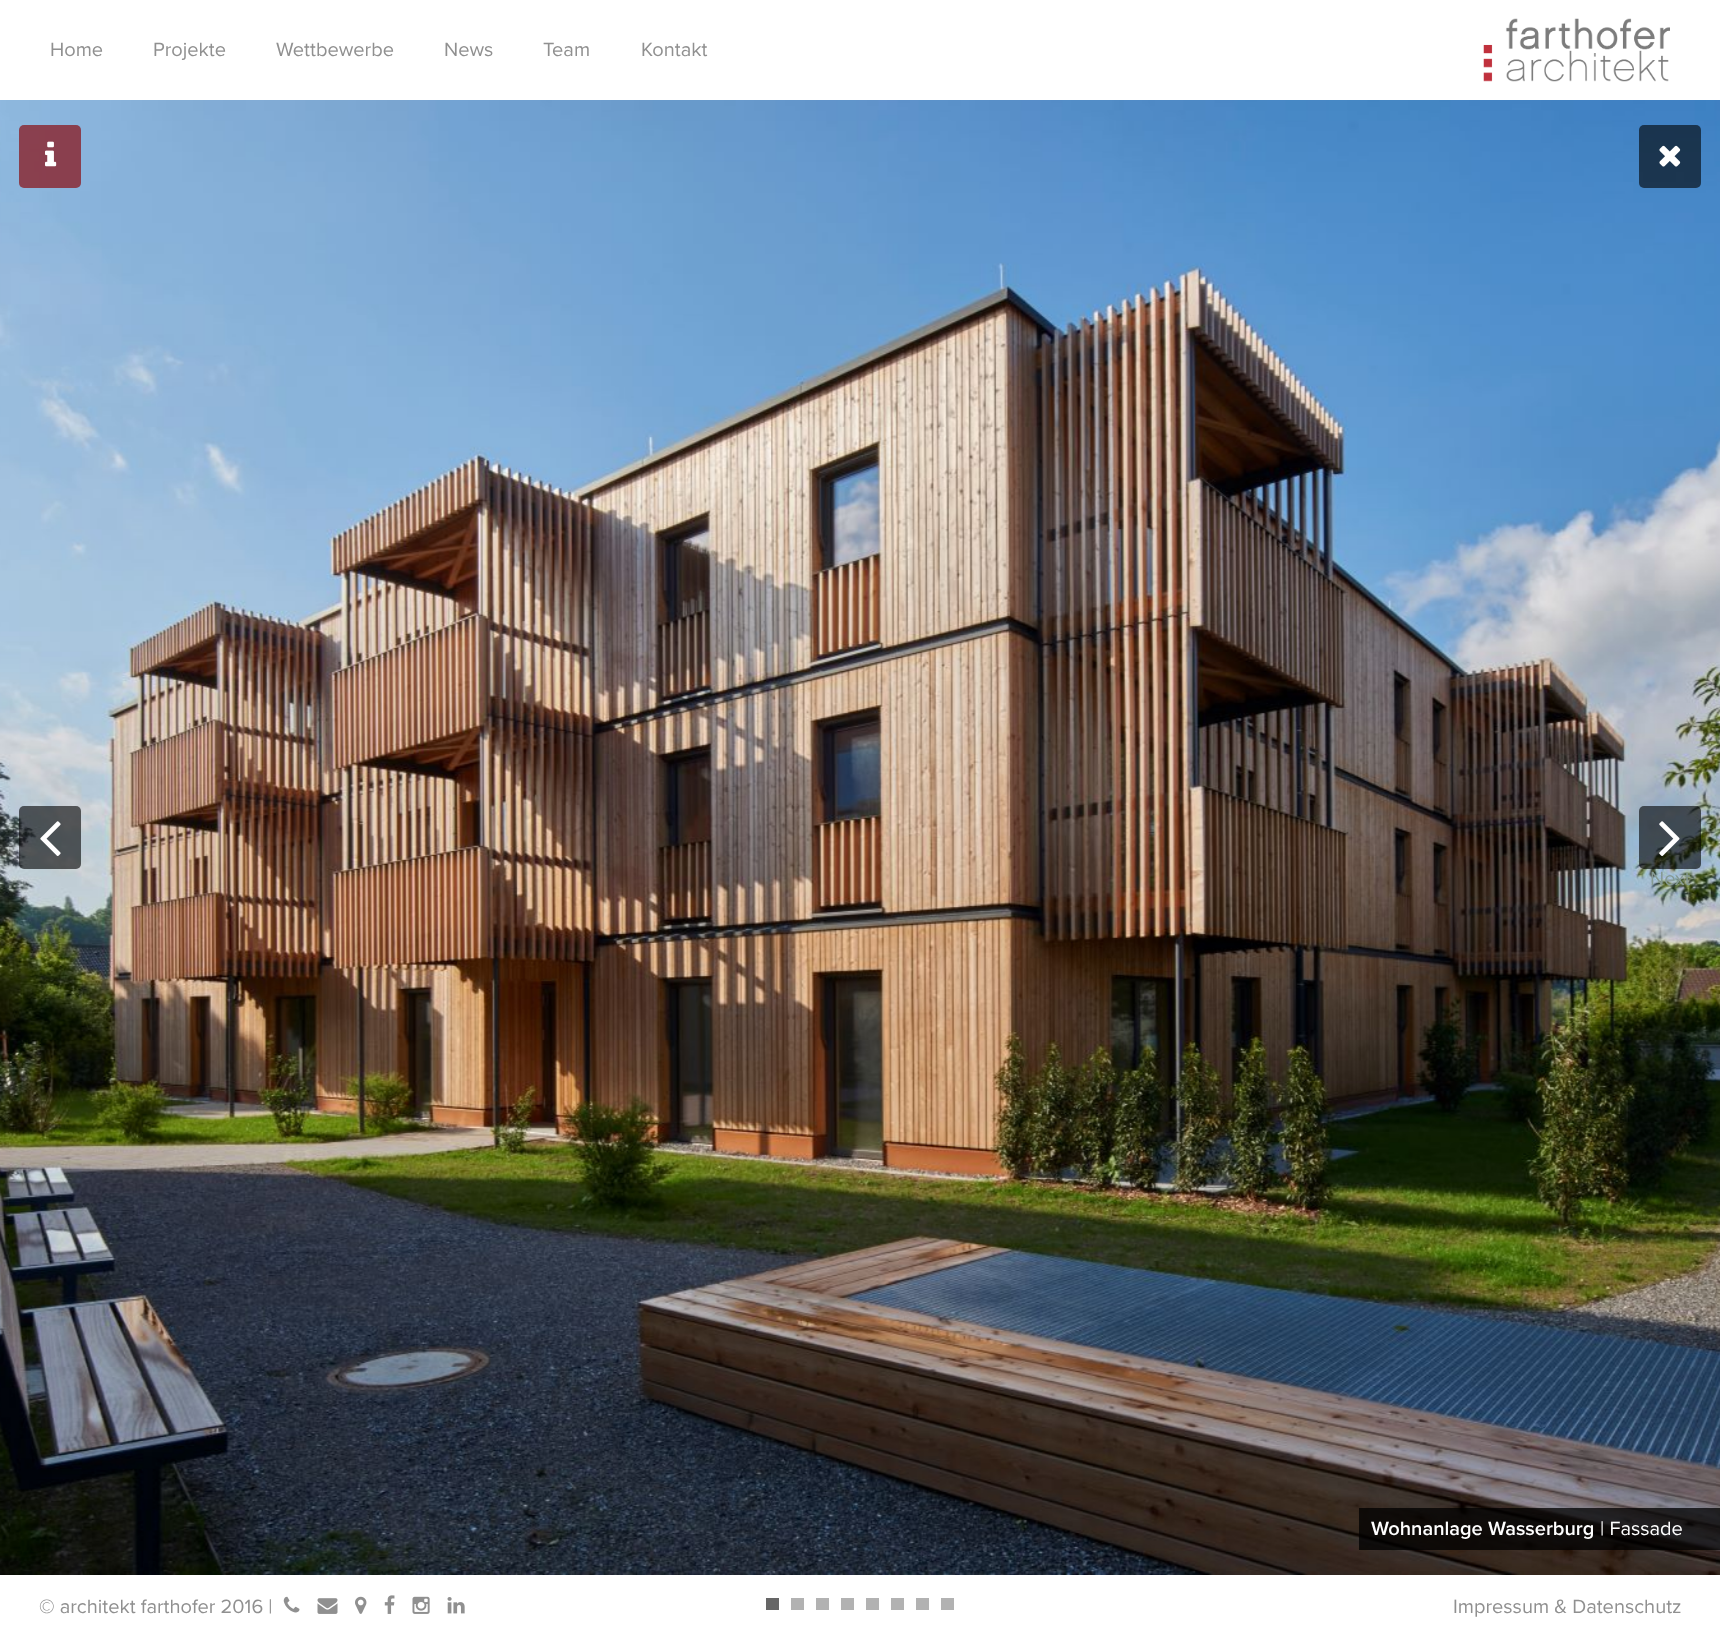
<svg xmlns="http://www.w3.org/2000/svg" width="1720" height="1637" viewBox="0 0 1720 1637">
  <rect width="100%" height="100%" fill="#fff"/>
  <image x="1483" y="18" width="187" height="64" href="img/1.png"/>
  <image x="0" y="100" width="1720" height="1475" href="img/6.png"/>
  <rect x="19" y="125" width="62" height="63" rx="5" fill="#89222bcc"/>
  <image x="45" y="141" width="12" height="26" href="img/2.png"/>
  <rect x="1639" y="125" width="62" height="63" rx="5" fill="#00000099"/>
  <image x="1659" y="145" width="22" height="22" href="img/3.png"/>
  <rect x="19" y="806" width="62" height="63" rx="5" fill="#00000099"/>
  <image x="40" y="821" width="21" height="35" href="img/4.png"/>
  <rect x="1639" y="806" width="62" height="63" rx="5" fill="#00000099"/>
  <image x="1659" y="821" width="21" height="35" href="img/5.png"/>
  <path d="M1359 1508h361v42H1359z" fill="#000000bf"/>
  <path d="M766 1598h13v12H766z" fill="#666"/>
  <path d="M791 1598h13v12H791z" fill="#b2b2b2"/>
  <path d="M816 1598h13v12H816z" fill="#b2b2b2"/>
  <path d="M841 1598h13v12H841z" fill="#b2b2b2"/>
  <path d="M866 1598h13v12H866z" fill="#b2b2b2"/>
  <path d="M891 1598h13v12H891z" fill="#b2b2b2"/>
  <path d="M916 1598h13v12H916z" fill="#b2b2b2"/>
  <path d="M941 1598h13v12H941z" fill="#b2b2b2"/>
  <image x="283" y="1596" width="17" height="17" href="img/7.png"/>
  <image x="317" y="1598" width="21" height="16" href="img/8.png"/>
  <image x="355" y="1596" width="12" height="18" href="img/9.png"/>
  <image x="384" y="1595" width="11" height="19" href="img/10.png"/>
  <image x="412" y="1596" width="18" height="18" href="img/11.png"/>
  <image x="447" y="1597" width="18" height="17" href="img/12.png"/>
  <g font-family="Proxima Nova" font-size="20" fill="#909090">
    <text x="50" y="56">Home</text>
    <text x="153" y="56">Projekte</text>
    <text x="276" y="56">Wettbewerbe</text>
    <text x="444" y="56">News</text>
    <text x="543" y="56">Team</text>
    <text x="641" y="56">Kontakt</text>
  </g>
  <text x="1650" y="885" font-family="Proxima Nova" font-size="20" fill="#869a94">Next</text>
  <text x="1371" y="1535" font-family="Proxima Nova" font-size="20" font-weight="600" fill="#fff">Wohnanlage Wasserburg</text>
  <text x="1600" y="1535" font-family="Proxima Nova" font-size="20" fill="#fff">| Fassade</text>
  <g font-family="Proxima Nova" font-size="20" fill="#909090">
    <text x="39" y="1613">© architekt farthofer 2016 |</text>
    <text x="1453" y="1613">Impressum &amp; Datenschutz</text>
  </g>
</svg>
